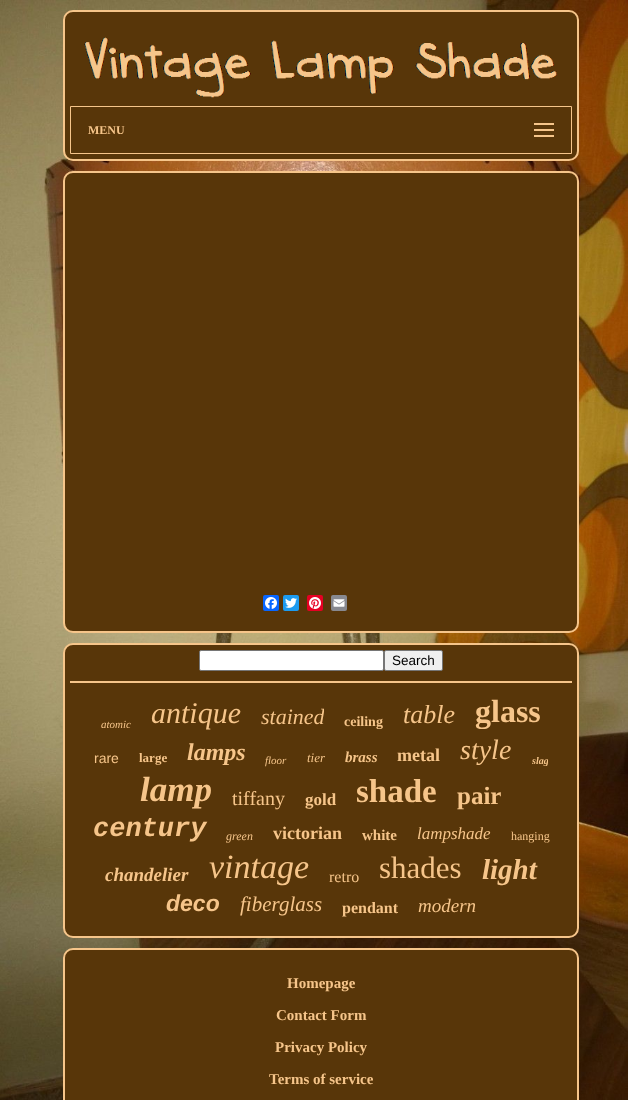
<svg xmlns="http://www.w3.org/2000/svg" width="628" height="1100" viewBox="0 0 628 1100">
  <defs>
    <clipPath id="clip1"><path d="M261 704h63v26H261z"/></clipPath>
    <clipPath id="clip2"><path d="M532 755h16v11H532z"/></clipPath>
  </defs>
  <rect width="100%" height="100%" fill="#fff"/>
  <image x="0" y="0" width="628" height="1100" href="img/1.png"/>
  <rect x="64" y="11" width="514" height="149" rx="9" fill="#583609" stroke="#f6c58a" stroke-width="2"/>
  <image x="84" y="37" width="473" height="61" href="img/2.png"/>
  <path d="M70.5 106.5h501v47H70.5z" fill="none" stroke="#f6c58a"/>
  <path d="M534 123h20v2H534z" fill="#f6c58a"/>
  <path d="M534 129h20v2H534z" fill="#f6c58a"/>
  <path d="M534 135h20v2H534z" fill="#f6c58a"/>
  <rect x="64" y="172" width="514" height="460" rx="9" fill="#583609" stroke="#f6c58a" stroke-width="2"/>
  <rect x="263" y="595" width="16" height="16" rx="2" fill="#0866ff"/>
  <image x="265" y="597" width="12" height="12" href="img/3.png"/>
  <rect x="283" y="595" width="16" height="16" rx="2" fill="#1d9bf0"/>
  <image x="285" y="598" width="12" height="10" href="img/4.png"/>
  <rect x="307" y="595" width="16" height="16" rx="2" fill="#e60023"/>
  <image x="309" y="597" width="12" height="12" href="img/5.png"/>
  <rect x="331" y="595" width="16" height="16" rx="2" fill="#888990"/>
  <image x="333" y="599" width="12" height="8" href="img/6.png"/>
  <rect x="64" y="644" width="514" height="293" rx="9" fill="#583609" stroke="#f6c58a" stroke-width="2"/>
  <rect x="199.5" y="650.5" width="184" height="20" rx="1.5" fill="#fff" stroke="#767676"/>
  <rect x="384.5" y="650.5" width="58" height="20" rx="1.5" fill="#efefef" stroke="#767676"/>
  <path d="M70 681h502v2H70z" fill="#f6c58a"/>
  <rect x="64" y="949" width="514" height="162" rx="9" fill="#583609" stroke="#f6c58a" stroke-width="2"/>
  <text x="88" y="134" font-family="Liberation Serif" font-size="12" font-weight="bold" fill="#f6c58a">MENU</text>
  <text x="392" y="665" font-family="Liberation Sans" font-size="13.5" fill="#000">Search</text>
  <text x="101" y="728" font-family="Liberation Serif" font-size="11" font-style="italic" fill="#f6c58a">atomic</text>
  <text x="151" y="723" font-family="Liberation Serif" font-size="30" font-style="italic" fill="#f6c58a">antique</text>
  <g clip-path="url(#clip1)">
    <text x="261" y="724" font-family="Liberation Serif" font-size="22" font-style="italic" fill="#f6c58a">stained</text>
  </g>
  <text x="344" y="726" font-family="Liberation Serif" font-size="14" font-weight="bold" fill="#f6c58a">ceiling</text>
  <text x="403" y="723" font-family="Liberation Serif" font-size="26" font-style="italic" fill="#f6c58a">table</text>
  <text x="475" y="722" font-family="Liberation Serif" font-size="32" font-weight="bold" fill="#f6c58a">glass</text>
  <text x="94" y="763" font-family="Liberation Sans" font-size="14" fill="#f6c58a">rare</text>
  <text x="139" y="762" font-family="Liberation Serif" font-size="13" font-weight="bold" fill="#f6c58a">large</text>
  <text x="187" y="760" font-family="Liberation Serif" font-size="24" font-weight="bold" font-style="italic" fill="#f6c58a">lamps</text>
  <text x="265" y="764" font-family="Liberation Serif" font-size="11" font-style="italic" fill="#f6c58a">floor</text>
  <text x="307" y="762" font-family="Liberation Serif" font-size="13" font-style="italic" fill="#f6c58a">tier</text>
  <text x="345" y="762" font-family="Liberation Serif" font-size="15" font-weight="bold" font-style="italic" fill="#f6c58a">brass</text>
  <text x="397" y="761" font-family="Liberation Serif" font-size="18" font-weight="bold" fill="#f6c58a">metal</text>
  <text x="460" y="759" font-family="Liberation Serif" font-size="28" font-style="italic" fill="#f6c58a">style</text>
  <g clip-path="url(#clip2)">
    <text x="532" y="764" font-family="Liberation Serif" font-size="10" font-weight="bold" font-style="italic" fill="#f6c58a">slag</text>
  </g>
  <text x="140" y="801" font-family="Liberation Serif" font-size="35" font-weight="bold" font-style="italic" fill="#f6c58a">lamp</text>
  <text x="232" y="805" font-family="Liberation Serif" font-size="20" fill="#f6c58a">tiffany</text>
  <text x="305" y="805" font-family="Liberation Serif" font-size="17" font-weight="bold" fill="#f6c58a">gold</text>
  <text x="356" y="802" font-family="Liberation Serif" font-size="33" font-weight="bold" fill="#f6c58a">shade</text>
  <text x="457" y="804" font-family="Liberation Serif" font-size="25" font-weight="bold" fill="#f6c58a">pair</text>
  <text x="93" y="836" font-family="Liberation Mono" font-size="27" font-weight="bold" font-style="italic" fill="#f6c58a">century</text>
  <text x="226" y="840" font-family="Liberation Serif" font-size="12" font-style="italic" fill="#f6c58a">green</text>
  <text x="273" y="839" font-family="Liberation Serif" font-size="18" font-weight="bold" fill="#f6c58a">victorian</text>
  <text x="362" y="840" font-family="Liberation Serif" font-size="15" font-weight="bold" fill="#f6c58a">white</text>
  <text x="417" y="839" font-family="Liberation Serif" font-size="17" font-style="italic" fill="#f6c58a">lampshade</text>
  <text x="511" y="840" font-family="Liberation Serif" font-size="12" fill="#f6c58a">hanging</text>
  <text x="105" y="881" font-family="Liberation Serif" font-size="19" font-weight="bold" font-style="italic" fill="#f6c58a">chandelier</text>
  <text x="209" y="878" font-family="Liberation Serif" font-size="34" font-style="italic" fill="#f6c58a">vintage</text>
  <text x="329" y="882" font-family="Liberation Serif" font-size="16" fill="#f6c58a">retro</text>
  <text x="379" y="878" font-family="Liberation Serif" font-size="31" fill="#f6c58a">shades</text>
  <text x="482" y="879" font-family="Liberation Serif" font-size="29" font-weight="bold" font-style="italic" fill="#f6c58a">light</text>
  <text x="166" y="911" font-family="Liberation Sans" font-size="23" font-weight="bold" font-style="italic" fill="#f6c58a">deco</text>
  <text x="240" y="911" font-family="Liberation Serif" font-size="21" font-style="italic" fill="#f6c58a">fiberglass</text>
  <text x="342" y="913" font-family="Liberation Serif" font-size="16" font-weight="bold" fill="#f6c58a">pendant</text>
  <text x="418" y="912" font-family="Liberation Serif" font-size="19" font-style="italic" fill="#f6c58a">modern</text>
  <g font-family="Liberation Serif" font-size="15" font-weight="bold" fill="#f6c58a">
    <text x="287" y="988">Homepage</text>
    <text x="276" y="1020">Contact Form</text>
    <text x="275" y="1052">Privacy Policy</text>
    <text x="269" y="1084">Terms of service</text>
  </g>
</svg>
